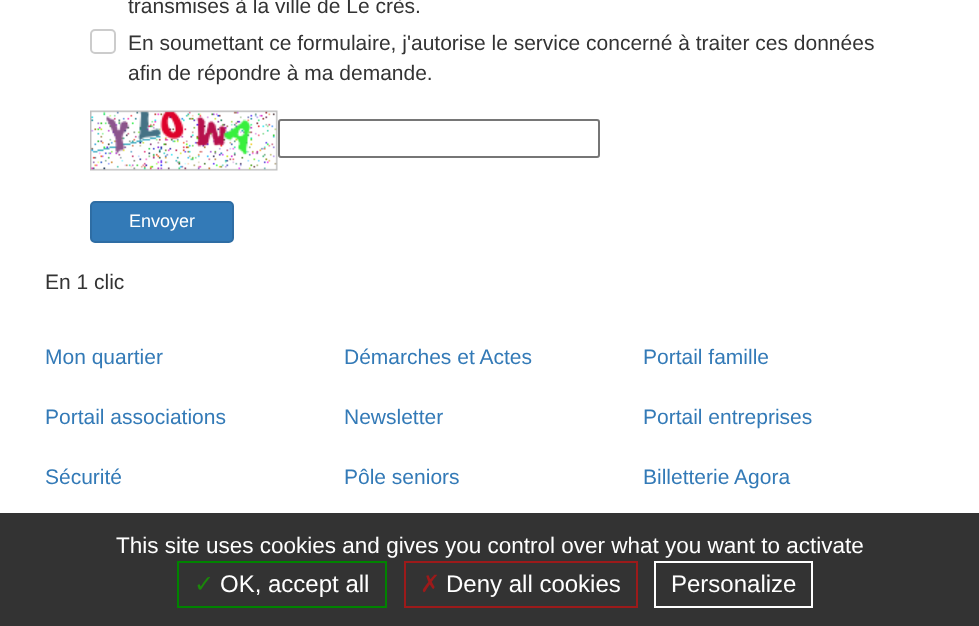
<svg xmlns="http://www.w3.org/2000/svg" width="979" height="626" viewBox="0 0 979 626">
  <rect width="100%" height="100%" fill="#fff"/>
  <rect x="91" y="30" width="24" height="23" rx="4" fill="none" stroke="#ccc" stroke-width="2"/>
  <image x="90" y="110" width="188" height="61" href="img/1.png"/>
  <rect x="279" y="120" width="320" height="37" rx="2" fill="none" stroke="#767676" stroke-width="2"/>
  <rect x="91" y="202" width="142" height="40" rx="4" fill="#337ab7" stroke="#2e6da4" stroke-width="2"/>
  <path d="M0 513h979v113H0z" fill="#333"/>
  <path d="M178 562h208v45H178z" fill="none" stroke="#008300" stroke-width="2"/>
  <path d="M405 562h232v45H405z" fill="none" stroke="#9c1a1a" stroke-width="2"/>
  <path d="M655 562h157v45H655z" fill="none" stroke="#fff" stroke-width="2"/>
  <g font-family="Liberation Sans" font-size="21" fill="#333">
    <text x="128" y="13">transmises à la ville de Le crès.</text>
    <text x="128" y="50">En soumettant ce formulaire, j'autorise le service concerné à traiter ces données</text>
    <text x="128" y="80">afin de répondre à ma demande.</text>
  </g>
  <text x="129" y="227" font-family="Liberation Sans" font-size="18" fill="#fff">Envoyer</text>
  <text x="45" y="289" font-family="Liberation Sans" font-size="21" fill="#333">En 1 clic</text>
  <g font-family="Liberation Sans" font-size="21" fill="#337ab7">
    <text x="45" y="364">Mon quartier</text>
    <text x="344" y="364">Démarches et Actes</text>
    <text x="643" y="364">Portail famille</text>
    <text x="45" y="424">Portail associations</text>
    <text x="344" y="424">Newsletter</text>
    <text x="643" y="424">Portail entreprises</text>
    <text x="45" y="484">Sécurité</text>
    <text x="344" y="484">Pôle seniors</text>
    <text x="643" y="484">Billetterie Agora</text>
  </g>
  <text x="116" y="553" font-family="Liberation Sans" font-size="22.5" fill="#fff">This site uses cookies and gives you control over what you want to activate</text>
  <text x="194" y="592" font-family="DejaVu Sans" font-size="24" fill="#1b870b">✓</text>
  <text x="220" y="592" font-family="Liberation Sans" font-size="24" fill="#fff">OK, accept all</text>
  <text x="420" y="592" font-family="DejaVu Sans" font-size="24" fill="#9c1a1a">✗</text>
  <g font-family="Liberation Sans" font-size="24" fill="#fff">
    <text x="446" y="592">Deny all cookies</text>
    <text x="671" y="592">Personalize</text>
  </g>
</svg>
